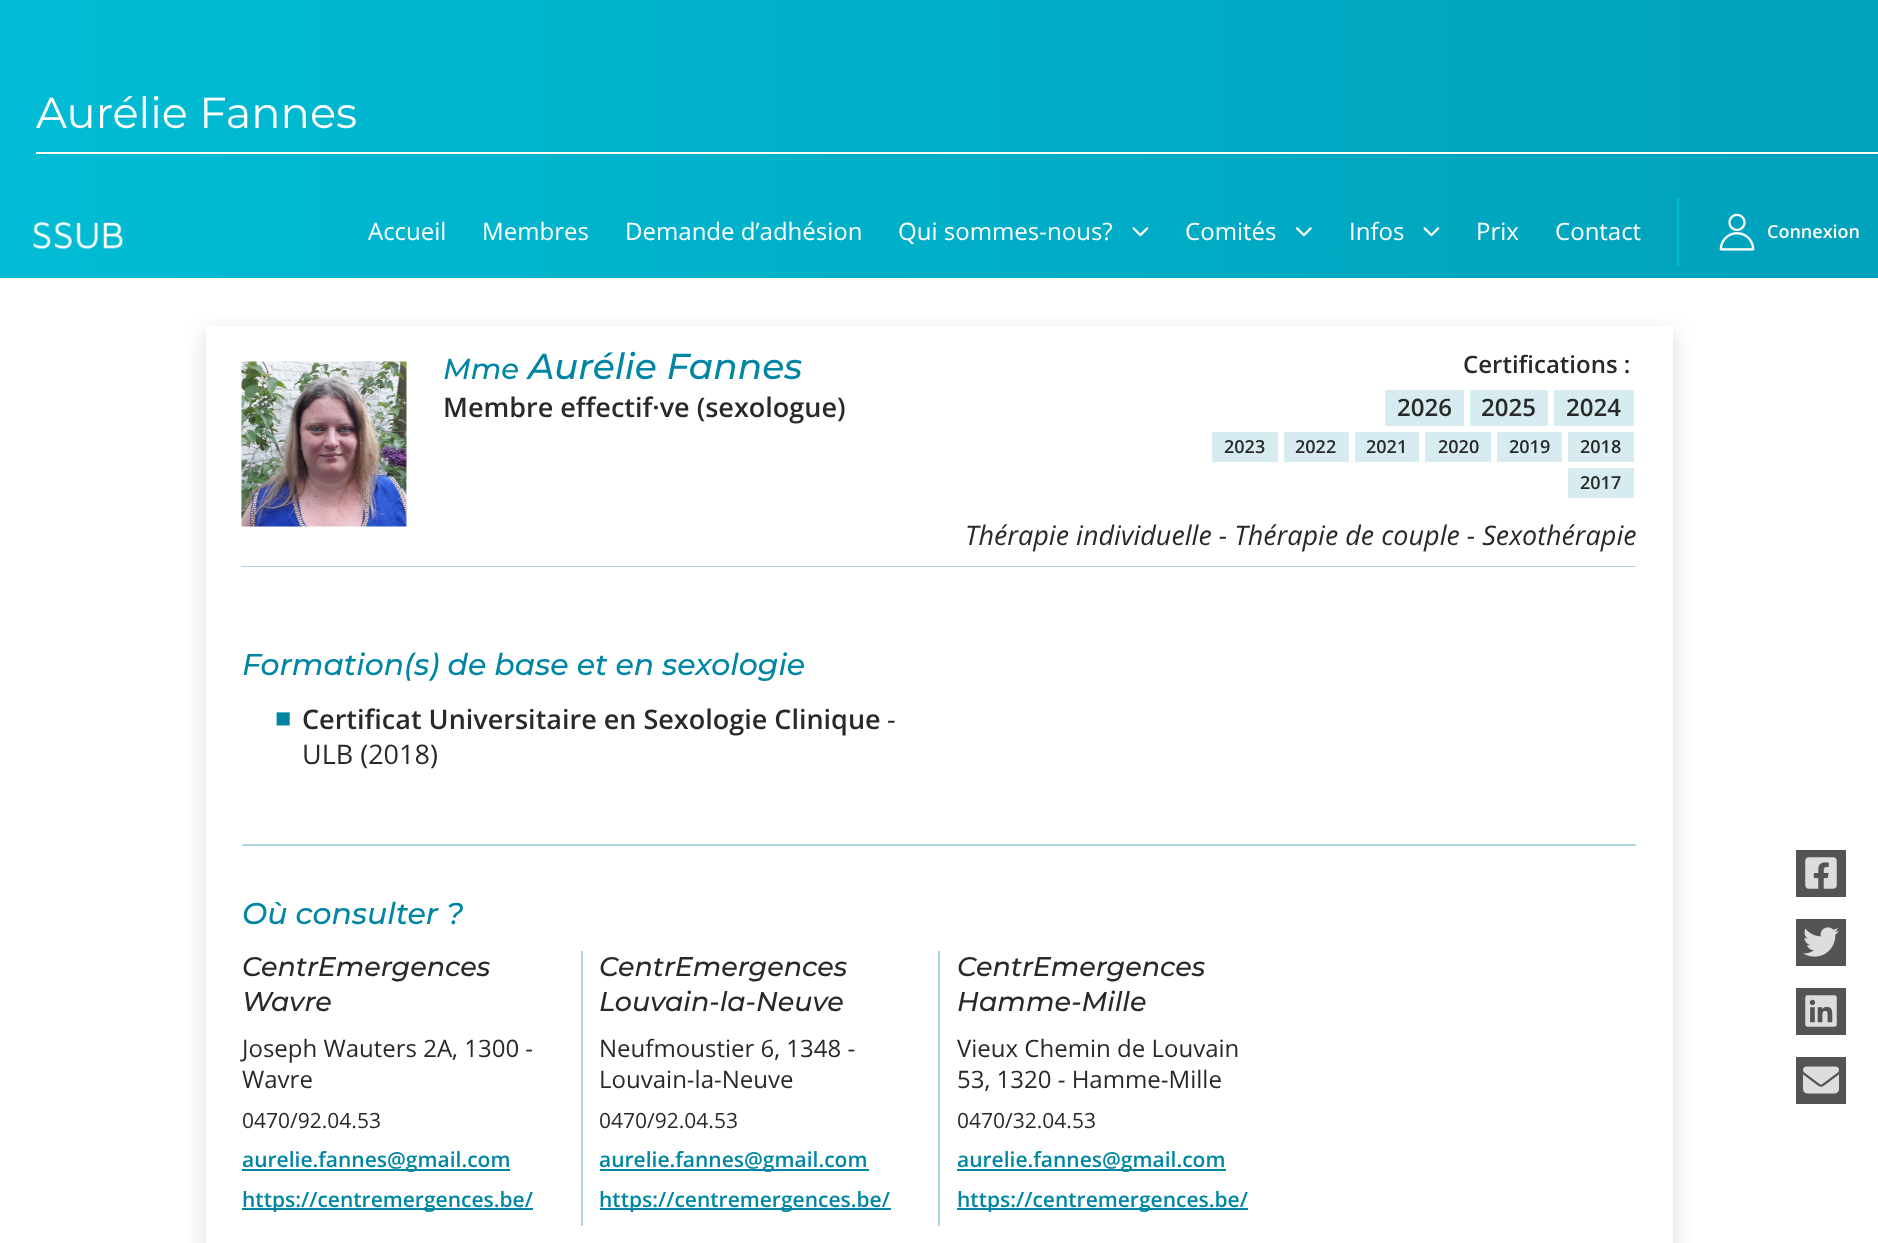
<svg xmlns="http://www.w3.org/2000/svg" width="1878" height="1243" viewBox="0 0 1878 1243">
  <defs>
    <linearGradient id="g1" gradientUnits="userSpaceOnUse" x1="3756" y1="95" x2="0" y2="94"><stop offset="0" stop-color="#0086a3"/><stop offset="1" stop-color="#00bcd4"/></linearGradient>
    <linearGradient id="g2" gradientUnits="userSpaceOnUse" x1="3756" y1="233" x2="0" y2="232"><stop offset="0" stop-color="#0086a3"/><stop offset="1" stop-color="#00bcd4"/></linearGradient>
    <clipPath id="clip1"><path d="M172 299H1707V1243H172ZM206 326H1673V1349H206Z" clip-rule="evenodd"/></clipPath>
  </defs>
  <rect width="100%" height="100%" fill="#fff"/>
  <path d="M0 0h1878v188H0z" fill="url(#g1)"/>
  <path d="M36 152h1842v2H36z" fill="#fff"/>
  <path d="M0 188h1878v90H0z" fill="url(#g2)"/>
  <image x="33" y="221" width="90" height="29" href="img/1.png"/>
  <image x="1132" y="227" width="17" height="10" href="img/2.png"/>
  <image x="1296" y="227" width="16" height="10" href="img/3.png"/>
  <image x="1423" y="227" width="17" height="10" href="img/4.png"/>
  <path d="M1677 198h2v68H1677z" fill="#00bcd4"/>
  <image x="1719" y="213" width="36" height="38" href="img/5.png"/>
  <g clip-path="url(#clip1)">
    <path d="M206 333h1467v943H206z" fill="#00000026" filter="blur(11px)"/>
  </g>
  <image x="241" y="361" width="166" height="166" href="img/6.png"/>
  <path d="M1385 390h79v36H1385z" fill="#d6ecf0"/>
  <path d="M1470 390h78v36H1470z" fill="#d6ecf0"/>
  <path d="M1554 390h80v36H1554z" fill="#d6ecf0"/>
  <path d="M1212 432h66v30H1212z" fill="#d6ecf0"/>
  <path d="M1284 432h65v30H1284z" fill="#d6ecf0"/>
  <path d="M1355 432h64v30H1355z" fill="#d6ecf0"/>
  <path d="M1425 432h66v30H1425z" fill="#d6ecf0"/>
  <path d="M1497 432h65v30H1497z" fill="#d6ecf0"/>
  <path d="M1568 432h66v30H1568z" fill="#d6ecf0"/>
  <path d="M1568 468h66v30H1568z" fill="#d6ecf0"/>
  <path d="M242 566H1636L1635 567H243Z" fill="#add8e2"/>
  <path d="M1636.5 565.5V567H1635Z" fill="#0086a352"/>
  <path d="M241.5 567V565.5L243 567Z" fill="#0086a352"/>
  <path d="M242 844H1636L1635 846H243Z" fill="#add8e2"/>
  <path d="M1636.5 844.5V846H1635Z" fill="#0086a352"/>
  <path d="M241.5 846V844.5L243 846Z" fill="#0086a352"/>
  <path d="M581 951h2v275H581z" fill="#add8e2"/>
  <path d="M242 1169h268v2H242z" fill="#0086a3"/>
  <path d="M242 1208h291v2H242z" fill="#0086a3"/>
  <path d="M938 951h2v275H938z" fill="#add8e2"/>
  <path d="M600 1169h269v2H600z" fill="#0086a3"/>
  <path d="M600 1208h291v2H600z" fill="#0086a3"/>
  <path d="M957 1169h269v2H957z" fill="#0086a3"/>
  <path d="M957 1208h291v2H957z" fill="#0086a3"/>
  <path d="M1796 850h50v47H1796z" fill="#545454"/>
  <image x="1805" y="857" width="32" height="32" href="img/7.png"/>
  <path d="M1796 919h50v47H1796z" fill="#545454"/>
  <image x="1803" y="927" width="36" height="30" href="img/8.png"/>
  <path d="M1796 988h50v47H1796z" fill="#545454"/>
  <image x="1805" y="995" width="32" height="32" href="img/9.png"/>
  <path d="M1796 1057h50v47H1796z" fill="#545454"/>
  <image x="1803" y="1066" width="36" height="28" href="img/10.png"/>
  <text x="36" y="128" font-family="Montserrat" font-size="43.25" fill="#fff">Aurélie Fannes</text>
  <g font-family="Open Sans" font-size="24" fill="#fff">
    <text x="368" y="240">Accueil</text>
    <text x="482" y="240">Membres</text>
    <text x="625" y="240">Demande d’adhésion</text>
    <text x="898" y="240">Qui sommes-nous?</text>
    <text x="1185" y="240">Comités</text>
    <text x="1349" y="240">Infos</text>
    <text x="1476" y="240">Prix</text>
    <text x="1555" y="240">Contact</text>
  </g>
  <text x="1767" y="238" font-family="Open Sans" font-size="18" font-weight="600" fill="#fff">Connexion</text>
  <text x="443" y="379" font-family="Montserrat" font-size="29" font-weight="500" font-style="italic" fill="#0086a3">Mme</text>
  <text x="528" y="379" font-family="Montserrat" font-size="36" font-weight="500" font-style="italic" fill="#0086a3">Aurélie Fannes</text>
  <text x="443" y="417" font-family="Open Sans" font-size="27" font-weight="600" fill="#292929">Membre effectif·ve (sexologue)</text>
  <g font-family="Open Sans" font-size="24" font-weight="600" fill="#292929">
    <text x="1463" y="373">Certifications :</text>
    <text x="1397" y="416">2026</text>
    <text x="1481" y="416">2025</text>
    <text x="1566" y="416">2024</text>
  </g>
  <g font-family="Open Sans" font-size="18" font-weight="600" fill="#292929">
    <text x="1224" y="453">2023</text>
    <text x="1295" y="453">2022</text>
    <text x="1366" y="453">2021</text>
    <text x="1438" y="453">2020</text>
    <text x="1509" y="453">2019</text>
    <text x="1580" y="453">2018</text>
    <text x="1580" y="489">2017</text>
  </g>
  <text x="965" y="545" font-family="Open Sans" font-size="27" font-style="italic" fill="#292929">Thérapie individuelle - Thérapie de couple - Sexothérapie</text>
  <text x="242" y="675" font-family="Montserrat" font-size="30" font-weight="500" font-style="italic" fill="#0086a3">Formation(s) de base et en sexologie</text>
  <text x="275" y="727" font-family="Liberation Serif" font-size="27" font-weight="bold" fill="#0086a3">■</text>
  <text x="302" y="729" font-family="Open Sans" font-size="27" font-weight="600" fill="#292929">Certificat Universitaire en Sexologie Clinique</text>
  <g font-family="Open Sans" font-size="27" fill="#292929">
    <text x="887" y="729">-</text>
    <text x="302" y="764">ULB (2018)</text>
  </g>
  <text x="242" y="924" font-family="Montserrat" font-size="30" font-weight="500" font-style="italic" fill="#0086a3">Où consulter ?</text>
  <g font-family="Montserrat" font-size="27" font-weight="500" font-style="italic" fill="#292929">
    <text x="242" y="976">CentrEmergences</text>
    <text x="242" y="1011">Wavre</text>
  </g>
  <g font-family="Open Sans" font-size="24" fill="#292929">
    <text x="242" y="1057">Joseph Wauters 2A, 1300 -</text>
    <text x="242" y="1088">Wavre</text>
  </g>
  <text x="242" y="1128" font-family="Open Sans" font-size="21" fill="#292929">0470/92.04.53</text>
  <g font-family="Open Sans" font-size="21" font-weight="600" fill="#0086a3">
    <text x="242" y="1167">aurelie.fannes@gmail.com</text>
    <text x="242" y="1207">https://centremergences.be/</text>
  </g>
  <g font-family="Montserrat" font-size="27" font-weight="500" font-style="italic" fill="#292929">
    <text x="599" y="976">CentrEmergences</text>
    <text x="599" y="1011">Louvain-la-Neuve</text>
  </g>
  <g font-family="Open Sans" font-size="24" fill="#292929">
    <text x="599" y="1057">Neufmoustier 6, 1348 -</text>
    <text x="599" y="1088">Louvain-la-Neuve</text>
  </g>
  <text x="599" y="1128" font-family="Open Sans" font-size="21" fill="#292929">0470/92.04.53</text>
  <g font-family="Open Sans" font-size="21" font-weight="600" fill="#0086a3">
    <text x="599" y="1167">aurelie.fannes@gmail.com</text>
    <text x="599" y="1207">https://centremergences.be/</text>
  </g>
  <g font-family="Montserrat" font-size="27" font-weight="500" font-style="italic" fill="#292929">
    <text x="957" y="976">CentrEmergences</text>
    <text x="957" y="1011">Hamme-Mille</text>
  </g>
  <g font-family="Open Sans" font-size="24" fill="#292929">
    <text x="957" y="1057">Vieux Chemin de Louvain</text>
    <text x="957" y="1088">53, 1320 - Hamme-Mille</text>
  </g>
  <text x="957" y="1128" font-family="Open Sans" font-size="21" fill="#292929">0470/32.04.53</text>
  <g font-family="Open Sans" font-size="21" font-weight="600" fill="#0086a3">
    <text x="957" y="1167">aurelie.fannes@gmail.com</text>
    <text x="957" y="1207">https://centremergences.be/</text>
  </g>
</svg>
